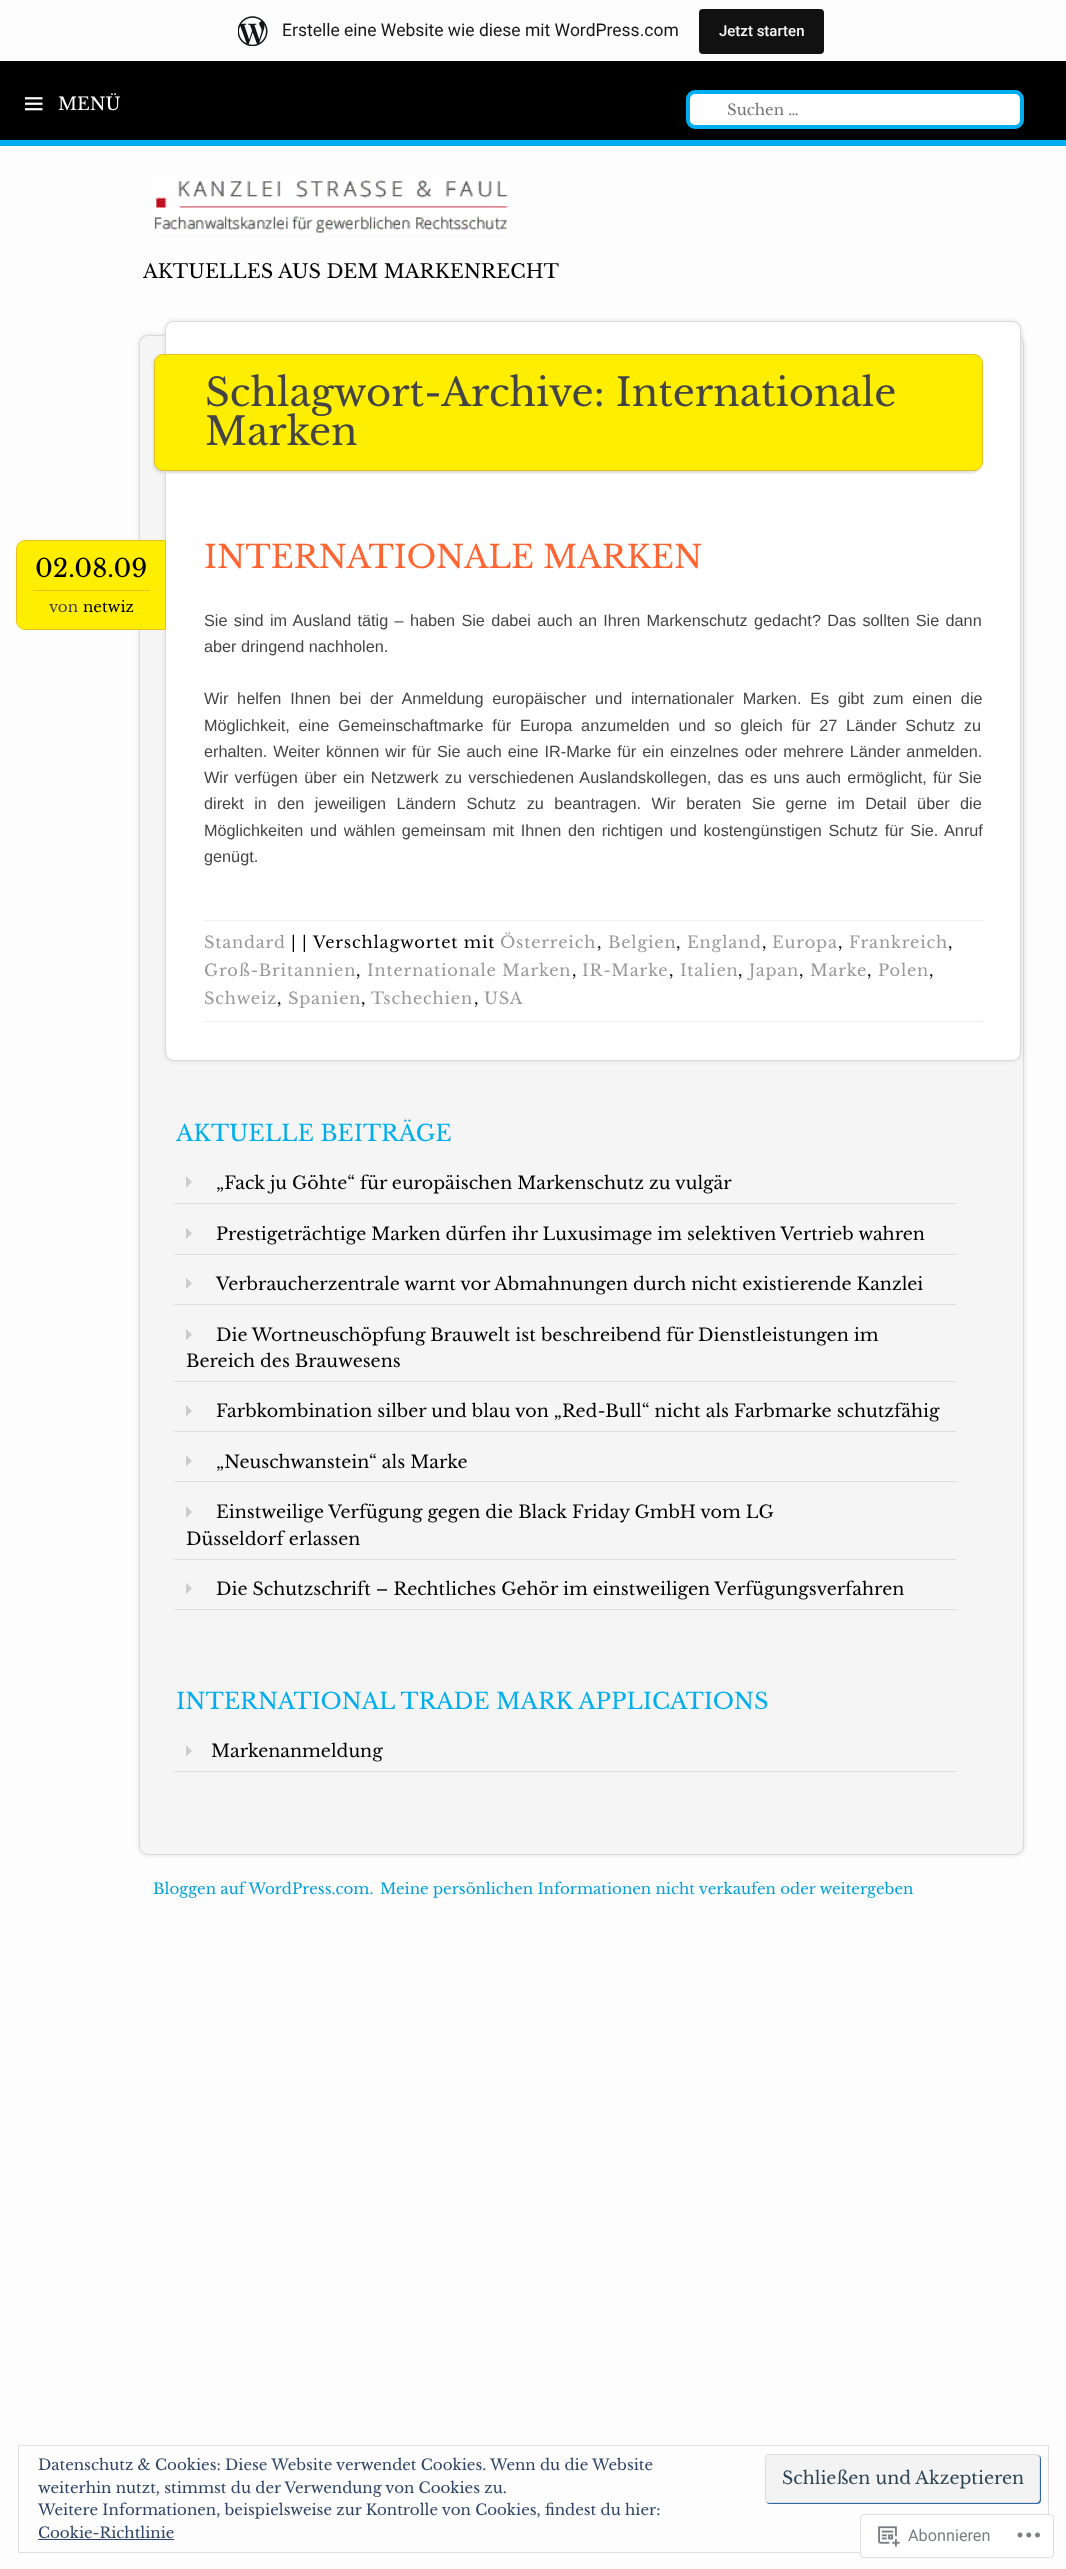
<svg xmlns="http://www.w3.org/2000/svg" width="1066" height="2569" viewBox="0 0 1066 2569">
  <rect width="100%" height="100%" fill="#fefdfd"/>
  <image x="238" y="16" width="30" height="30" href="img/1.png"/>
  <rect x="699" y="9" width="125" height="45" rx="4" fill="#111"/>
  <path d="M0 61h1066v79H0z" fill="#000"/>
  <path d="M0 140h1066v6H0z" fill="#00aeef"/>
  <image x="25" y="97" width="18" height="14" href="img/2.png"/>
  <rect x="688" y="92" width="334" height="35" rx="7" fill="#fff" stroke="#00aeef" stroke-width="4"/>
  <image x="154" y="179" width="354" height="54" href="img/3.png"/>
  <rect x="139" y="335" width="885" height="1520" rx="9" fill="#dadada" filter="blur(2px)"/>
  <rect x="139.5" y="335.5" width="884" height="1519" rx="8.5" fill="#f5f5f5" stroke="#dadada"/>
  <rect x="165" y="321" width="856" height="740" rx="9" fill="#dadada" filter="blur(2px)"/>
  <rect x="165.5" y="321.5" width="855" height="739" rx="8.5" fill="#fff" stroke="#dadada"/>
  <rect x="153" y="355" width="828" height="118" rx="9" fill="#dadada" filter="blur(1px)"/>
  <rect x="154.5" y="354.5" width="828" height="116" rx="8.5" fill="#fe0" stroke="#e5c221"/>
  <path d="M25 540.5H165.5V629.5H25C20.5 629.5 16.5 625.5 16.5 621V549C16.5 544.5 20.5 540.5 25 540.5Z" fill="#fe0" stroke="#e5c221"/>
  <path d="M33 590h117v1H33z" fill="#e5c221"/>
  <path d="M204 920h779v1H204z" fill="#efefef"/>
  <path d="M204 1021h779v1H204z" fill="#efefef"/>
  <path d="M174 1203h782v1H174z" fill="#dedede"/>
  <path d="M186 1188L192 1182L186 1176Z" fill="#ccc"/>
  <path d="M174 1254h782v1H174z" fill="#dedede"/>
  <path d="M186 1239L192 1233.5L186 1227.5Z" fill="#ccc"/>
  <path d="M174 1304h782v1H174z" fill="#dedede"/>
  <path d="M186 1289L192 1283.5L186 1277.5Z" fill="#ccc"/>
  <path d="M174 1381h782v1H174z" fill="#dedede"/>
  <path d="M186 1340.5L192 1334.5L186 1329Z" fill="#ccc"/>
  <path d="M174 1431h782v1H174z" fill="#dedede"/>
  <path d="M186 1416.5L192 1411L186 1405Z" fill="#ccc"/>
  <path d="M174 1481h782v1H174z" fill="#dedede"/>
  <path d="M186 1466.5L192 1461L186 1455Z" fill="#ccc"/>
  <path d="M174 1559h782v1H174z" fill="#dedede"/>
  <path d="M186 1518L192 1512L186 1506Z" fill="#ccc"/>
  <path d="M174 1609h782v1H174z" fill="#dedede"/>
  <path d="M186 1594L192 1588.5L186 1582.5Z" fill="#ccc"/>
  <path d="M174 1771h782v1H174z" fill="#dedede"/>
  <path d="M186 1756.5L192 1751L186 1745Z" fill="#ccc"/>
  <path d="M18.5 2445.5h1030v107H18.5z" fill="none" stroke="#dedede"/>
  <rect x="766" y="2455" width="275" height="49" rx="4" fill="#2e6aa7" filter="blur(0.5px)"/>
  <rect x="765.5" y="2454.5" width="274" height="48" rx="3.5" fill="#f3f3f3" stroke="#dedede"/>
  <path d="M38 2539h136v1H38z" fill="#2e4467"/>
  <rect x="860.5" y="2514.5" width="193" height="43" rx="3.5" fill="#fffffffa" stroke="#dddddf"/>
  <image x="878" y="2526" width="22" height="21" href="img/4.png"/>
  <image x="1017" y="2532" width="23" height="6" href="img/5.png"/>
  <text x="282" y="36" font-family="Roboto" font-size="17.5" fill="#171717">Erstelle eine Website wie diese mit WordPress.com</text>
  <text x="719" y="36" font-family="Roboto" font-size="15" font-weight="500" fill="#f6f7f7">Jetzt starten</text>
  <text x="58" y="110" font-family="Libre Baskerville" font-size="17.5" fill="#fff">MENÜ</text>
  <text x="727" y="115" font-family="Libre Baskerville" font-size="15" fill="#757575">Suchen …</text>
  <text x="143" y="278" font-family="Libre Baskerville" font-size="19.25" fill="#000">AKTUELLES AUS DEM MARKENRECHT</text>
  <g font-family="Libre Baskerville" font-size="38.5" fill="#444">
    <text x="205" y="406">Schlagwort-Archive: Internationale</text>
    <text x="205" y="445">Marken</text>
  </g>
  <text x="35" y="577" font-family="Libre Baskerville" font-size="25" fill="#000">02.08.09</text>
  <text x="49" y="612" font-family="Libre Baskerville" font-size="15" fill="#444">von</text>
  <text x="83" y="612" font-family="Libre Baskerville" font-size="15" fill="#000">netwiz</text>
  <text x="204" y="568" font-family="Libre Baskerville" font-size="31.5" fill="#f63">INTERNATIONALE MARKEN</text>
  <g font-family="Liberation Sans" font-size="16.25" fill="#444">
    <text x="204" y="626" word-spacing="1.8">Sie sind im Ausland tätig – haben Sie dabei auch an Ihren Markenschutz gedacht? Das sollten Sie dann</text>
    <text x="204" y="652">aber dringend nachholen.</text>
    <text x="204" y="704" word-spacing="4.25">Wir helfen Ihnen bei der Anmeldung europäischer und internationaler Marken. Es gibt zum einen die</text>
    <text x="204" y="731" word-spacing="4.25">Möglichkeit, eine Gemeinschaftmarke für Europa anzumelden und so gleich für 27 Länder Schutz zu</text>
    <text x="204" y="757" word-spacing="1.5">erhalten. Weiter können wir für Sie auch eine IR-Marke für ein einzelnes oder mehrere Länder anmelden.</text>
    <text x="204" y="783" word-spacing="1.75">Wir verfügen über ein Netzwerk zu verschiedenen Auslandskollegen, das es uns auch ermöglicht, für Sie</text>
    <text x="204" y="809" word-spacing="5.9">direkt in den jeweiligen Ländern Schutz zu beantragen. Wir beraten Sie gerne im Detail über die</text>
    <text x="204" y="836" word-spacing="2.1">Möglichkeiten und wählen gemeinsam mit Ihnen den richtigen und kostengünstigen Schutz für Sie. Anruf</text>
    <text x="204" y="862">genügt.</text>
  </g>
  <text x="204" y="948" font-family="Libre Baskerville" font-size="16.25" letter-spacing="0.8" fill="#999">Standard</text>
  <g font-family="Libre Baskerville" font-size="16.25" letter-spacing="0.8" fill="#000">
    <text x="291" y="948">| |</text>
    <text x="313" y="948">Verschlagwortet mit</text>
  </g>
  <text x="500" y="948" font-family="Libre Baskerville" font-size="16.25" letter-spacing="0.8" fill="#999">Österreich</text>
  <text x="597" y="948" font-family="Libre Baskerville" font-size="16.25" letter-spacing="0.8" fill="#000">,</text>
  <text x="608" y="948" font-family="Libre Baskerville" font-size="16.25" letter-spacing="0.8" fill="#999">Belgien</text>
  <text x="676" y="948" font-family="Libre Baskerville" font-size="16.25" letter-spacing="0.8" fill="#000">,</text>
  <text x="687" y="948" font-family="Libre Baskerville" font-size="16.25" letter-spacing="0.8" fill="#999">England</text>
  <text x="762" y="948" font-family="Libre Baskerville" font-size="16.25" letter-spacing="0.8" fill="#000">,</text>
  <text x="772" y="948" font-family="Libre Baskerville" font-size="16.25" letter-spacing="0.8" fill="#999">Europa</text>
  <text x="838" y="948" font-family="Libre Baskerville" font-size="16.25" letter-spacing="0.8" fill="#000">,</text>
  <text x="849" y="948" font-family="Libre Baskerville" font-size="16.25" letter-spacing="0.8" fill="#999">Frankreich</text>
  <text x="948" y="948" font-family="Libre Baskerville" font-size="16.25" letter-spacing="0.8" fill="#000">,</text>
  <text x="204" y="976" font-family="Libre Baskerville" font-size="16.25" letter-spacing="0.8" fill="#999">Groß-Britannien</text>
  <text x="356" y="976" font-family="Libre Baskerville" font-size="16.25" letter-spacing="0.8" fill="#000">,</text>
  <text x="367" y="976" font-family="Libre Baskerville" font-size="16.25" letter-spacing="0.8" fill="#999">Internationale Marken</text>
  <text x="572" y="976" font-family="Libre Baskerville" font-size="16.25" letter-spacing="0.8" fill="#000">,</text>
  <text x="582" y="976" font-family="Libre Baskerville" font-size="16.25" letter-spacing="0.8" fill="#999">IR-Marke</text>
  <text x="669" y="976" font-family="Libre Baskerville" font-size="16.25" letter-spacing="0.8" fill="#000">,</text>
  <text x="680" y="976" font-family="Libre Baskerville" font-size="16.25" letter-spacing="0.8" fill="#999">Italien</text>
  <text x="738" y="976" font-family="Libre Baskerville" font-size="16.25" letter-spacing="0.8" fill="#000">,</text>
  <text x="749" y="976" font-family="Libre Baskerville" font-size="16.25" letter-spacing="0.8" fill="#999">Japan</text>
  <text x="799" y="976" font-family="Libre Baskerville" font-size="16.25" letter-spacing="0.8" fill="#000">,</text>
  <text x="810" y="976" font-family="Libre Baskerville" font-size="16.25" letter-spacing="0.8" fill="#999">Marke</text>
  <text x="867" y="976" font-family="Libre Baskerville" font-size="16.25" letter-spacing="0.8" fill="#000">,</text>
  <text x="878" y="976" font-family="Libre Baskerville" font-size="16.25" letter-spacing="0.8" fill="#999">Polen</text>
  <text x="929" y="976" font-family="Libre Baskerville" font-size="16.25" letter-spacing="0.8" fill="#000">,</text>
  <text x="204" y="1004" font-family="Libre Baskerville" font-size="16.25" letter-spacing="0.8" fill="#999">Schweiz</text>
  <text x="277" y="1004" font-family="Libre Baskerville" font-size="16.25" letter-spacing="0.8" fill="#000">,</text>
  <text x="288" y="1004" font-family="Libre Baskerville" font-size="16.25" letter-spacing="0.8" fill="#999">Spanien</text>
  <text x="361" y="1004" font-family="Libre Baskerville" font-size="16.25" letter-spacing="0.8" fill="#000">,</text>
  <text x="371" y="1004" font-family="Libre Baskerville" font-size="16.25" letter-spacing="0.8" fill="#999">Tschechien</text>
  <text x="474" y="1004" font-family="Libre Baskerville" font-size="16.25" letter-spacing="0.8" fill="#000">,</text>
  <text x="484" y="1004" font-family="Libre Baskerville" font-size="16.25" letter-spacing="0.8" fill="#999">USA</text>
  <text x="176" y="1141" font-family="Libre Baskerville" font-size="22.5" fill="#00aeef">AKTUELLE BEITRÄGE</text>
  <g font-family="Libre Baskerville" font-size="17.5" fill="#000">
    <text x="216" y="1189">„Fack ju Göhte“ für europäischen Markenschutz zu vulgär</text>
    <text x="216" y="1240">Prestigeträchtige Marken dürfen ihr Luxusimage im selektiven Vertrieb wahren</text>
    <text x="216" y="1290">Verbraucherzentrale warnt vor Abmahnungen durch nicht existierende Kanzlei</text>
    <text x="216" y="1341">Die Wortneuschöpfung Brauwelt ist beschreibend für Dienstleistungen im</text>
    <text x="186" y="1367">Bereich des Brauwesens</text>
    <text x="216" y="1417">Farbkombination silber und blau von „Red-Bull“ nicht als Farbmarke schutzfähig</text>
    <text x="216" y="1468">„Neuschwanstein“ als Marke</text>
    <text x="216" y="1518">Einstweilige Verfügung gegen die Black Friday GmbH vom LG</text>
    <text x="186" y="1545">Düsseldorf erlassen</text>
    <text x="216" y="1595">Die Schutzschrift – Rechtliches Gehör im einstweiligen Verfügungsverfahren</text>
  </g>
  <text x="176" y="1709" font-family="Libre Baskerville" font-size="22.5" fill="#00aeef">INTERNATIONAL TRADE MARK APPLICATIONS</text>
  <text x="211" y="1757" font-family="Libre Baskerville" font-size="17.5" fill="#000">Markenanmeldung</text>
  <g font-family="Libre Baskerville" font-size="15" fill="#01a0db">
    <text x="153" y="1894">Bloggen auf WordPress.com.</text>
    <text x="380" y="1894">Meine persönlichen Informationen nicht verkaufen oder weitergeben</text>
  </g>
  <g font-family="Libre Baskerville" font-size="15" fill="#2e4467">
    <text x="38" y="2470">Datenschutz &amp; Cookies: Diese Website verwendet Cookies. Wenn du die Website</text>
    <text x="38" y="2493">weiterhin nutzt, stimmst du der Verwendung von Cookies zu.</text>
  </g>
  <text x="782" y="2484" font-family="Libre Baskerville" font-size="17.5" fill="#2e4453">Schließen und Akzeptieren</text>
  <g font-family="Libre Baskerville" font-size="15" fill="#2e4467">
    <text x="38" y="2515">Weitere Informationen, beispielsweise zur Kontrolle von Cookies, findest du hier:</text>
    <text x="38" y="2538">Cookie-Richtlinie</text>
  </g>
  <text x="908" y="2541" font-family="Roboto" font-size="16.25" fill="#7b7f85">Abonnieren</text>
</svg>
